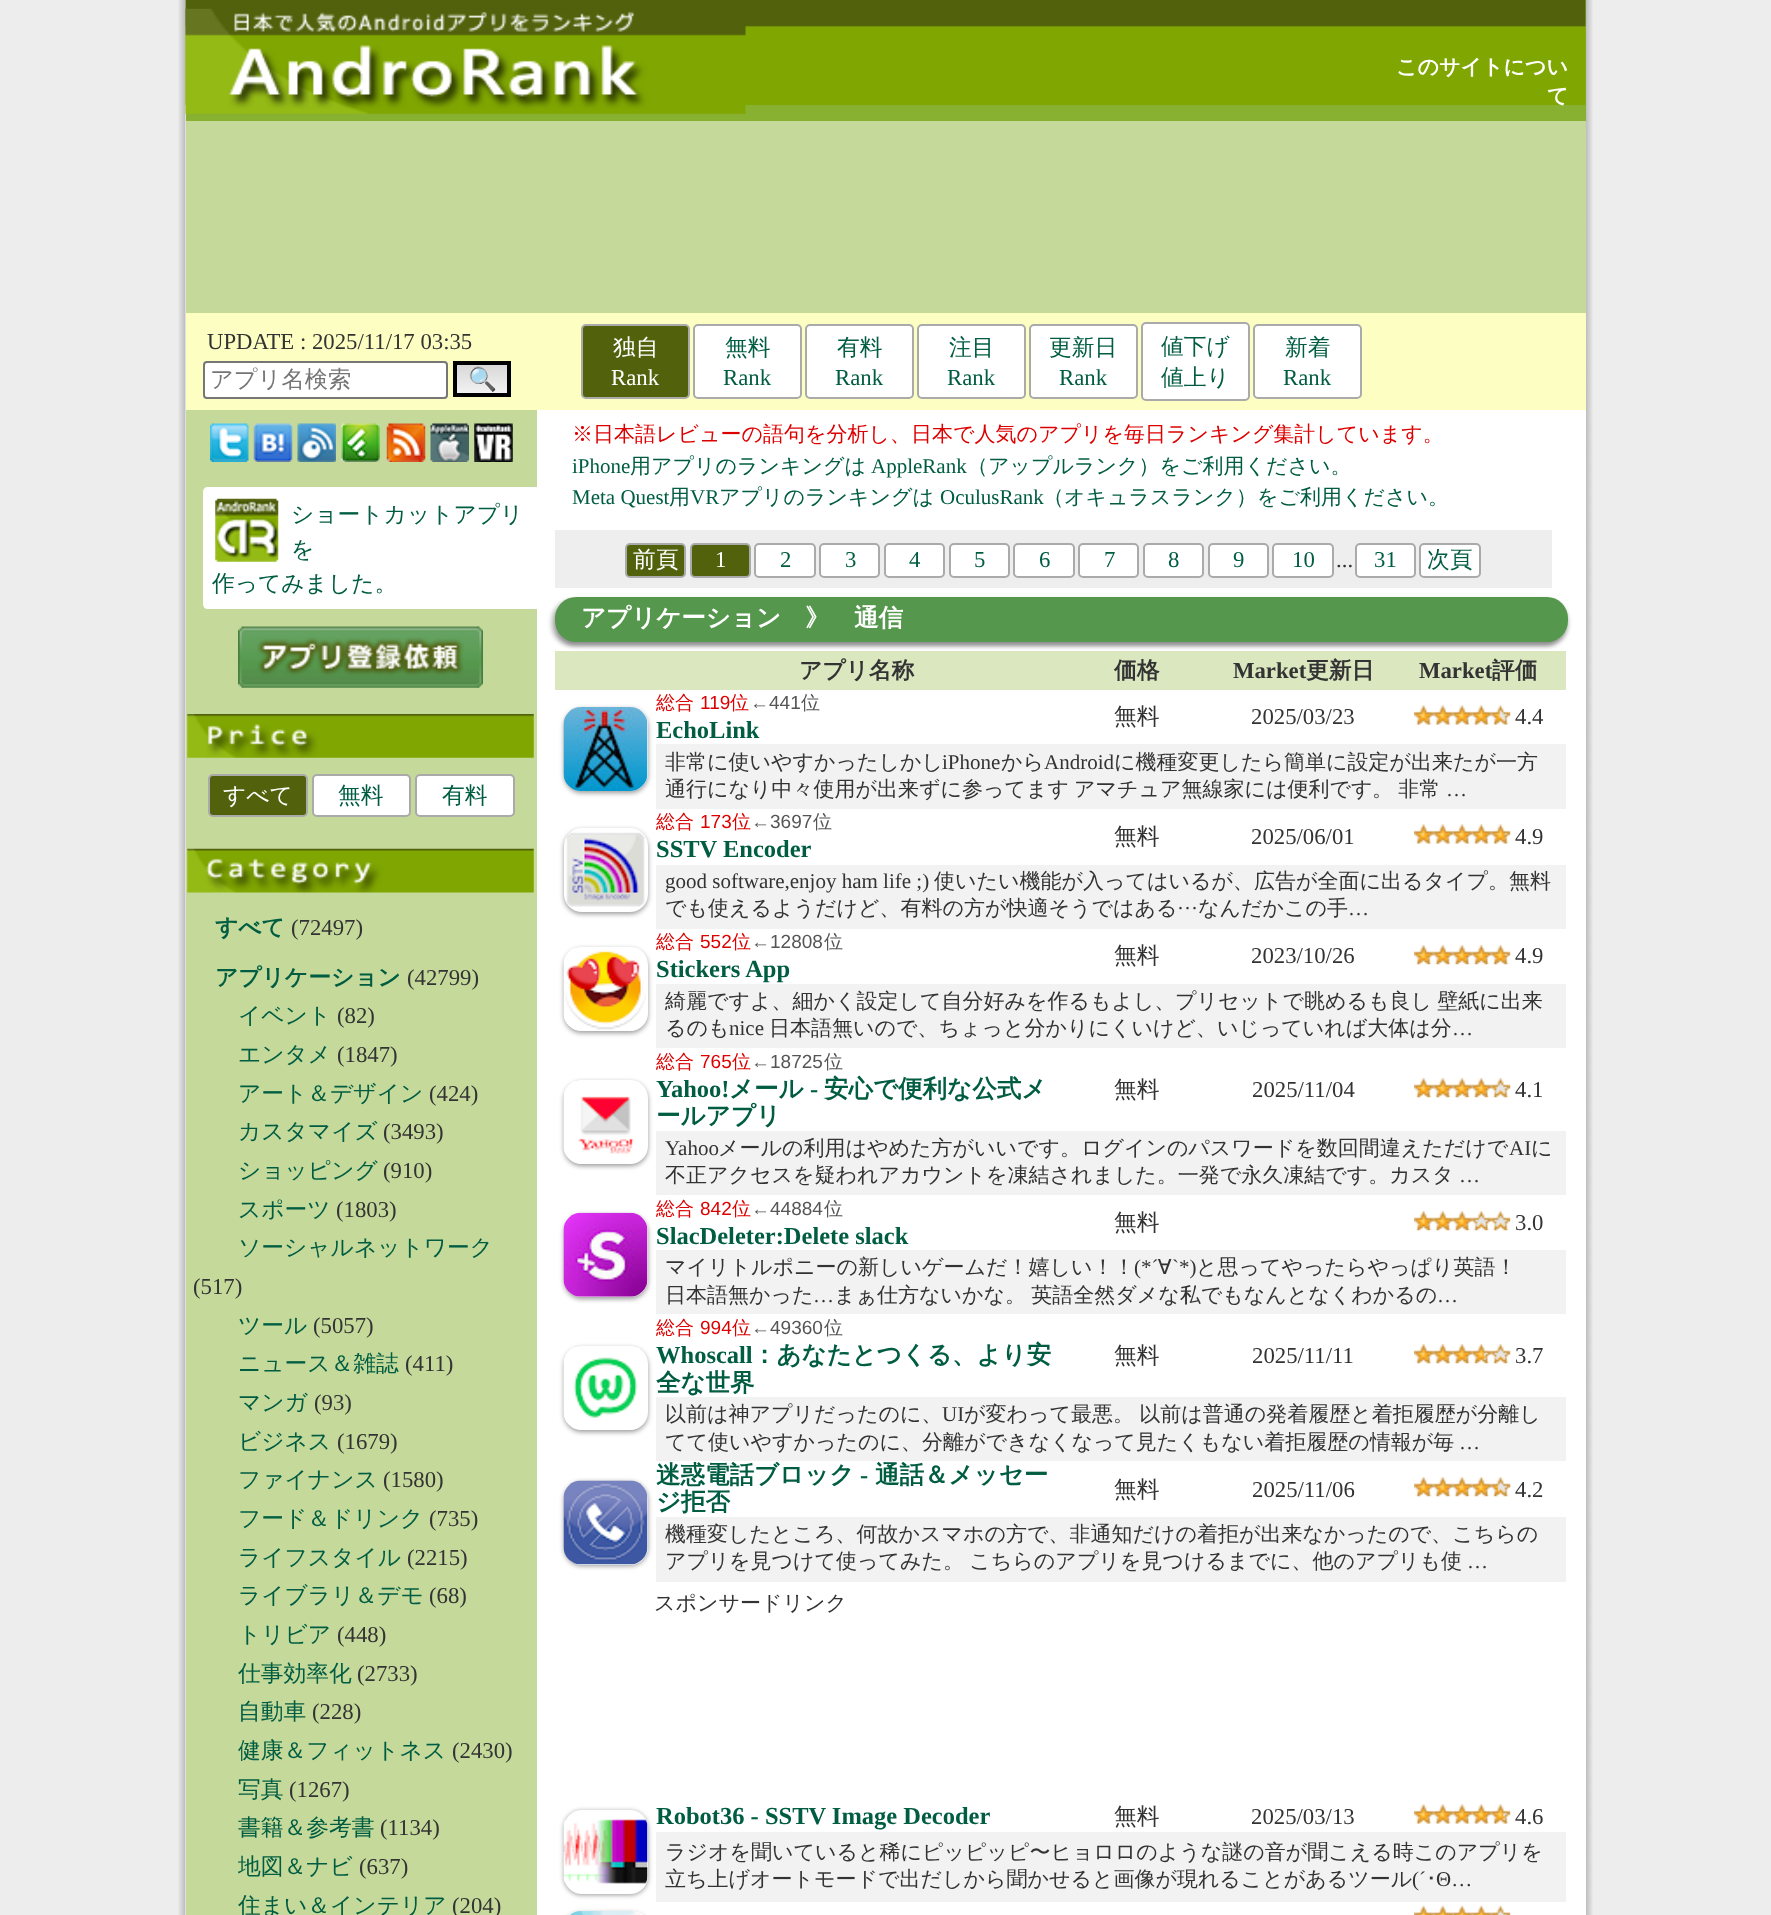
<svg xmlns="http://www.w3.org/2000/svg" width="1771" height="1915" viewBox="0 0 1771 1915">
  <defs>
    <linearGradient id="g1" gradientUnits="userSpaceOnUse" x1="482" y1="364" x2="482" y2="394"><stop offset="0" stop-color="#d7d7d7"/><stop offset="1" stop-color="#f3f3f3"/></linearGradient>
  </defs>
  <rect width="100%" height="100%" fill="#ededed"/>
  <image x="178" y="0" width="1415" height="1915" href="img/1.png"/>
  <path d="M186 0h1400v121H186z" fill="#88b131"/>
  <image x="185" y="0" width="1401" height="105" href="img/2.png"/>
  <image x="185" y="8" width="561" height="106" href="img/3.png"/>
  <path d="M186 121h1400v192H186z" fill="#c5d99a"/>
  <path d="M186 313h1400v97H186z" fill="#fdffc2"/>
  <rect x="204" y="362" width="243" height="36" rx="3" fill="#fff" stroke="#767676" stroke-width="2"/>
  <path d="M457 365h50v28H457z" fill="url(#g1)"/>
  <path d="M455 363h54v32H455z" fill="none" stroke="#000" stroke-width="4"/>
  <rect x="582" y="325" width="107" height="73" rx="4" fill="#51610c" stroke="#aaa" stroke-width="2"/>
  <rect x="694" y="325" width="107" height="73" rx="4" fill="#fff" stroke="#aaa" stroke-width="2"/>
  <rect x="806" y="325" width="107" height="73" rx="4" fill="#fff" stroke="#aaa" stroke-width="2"/>
  <rect x="918" y="325" width="107" height="73" rx="4" fill="#fff" stroke="#aaa" stroke-width="2"/>
  <rect x="1030" y="325" width="107" height="73" rx="4" fill="#fff" stroke="#aaa" stroke-width="2"/>
  <rect x="1142" y="323" width="107" height="77" rx="4" fill="#fff" stroke="#aaa" stroke-width="2"/>
  <rect x="1254" y="325" width="107" height="73" rx="4" fill="#fff" stroke="#aaa" stroke-width="2"/>
  <path d="M1583 410h3v1505H1583z" fill="#fff"/>
  <path d="M186 410h351v1505H186z" fill="#c5d99a"/>
  <image x="210" y="423" width="39" height="39" href="img/4.png"/>
  <image x="253" y="423" width="40" height="39" href="img/5.png"/>
  <image x="297" y="423" width="39" height="39" href="img/6.png"/>
  <image x="341" y="423" width="39" height="39" href="img/7.png"/>
  <image x="386" y="423" width="40" height="39" href="img/8.png"/>
  <image x="430" y="423" width="39" height="39" href="img/9.png"/>
  <image x="474" y="423" width="39" height="39" href="img/10.png"/>
  <path d="M208 487H537V609H208C205 609 203 607 203 604V492C203 489 205 487 208 487Z" fill="#fff"/>
  <image x="215" y="498" width="64" height="64" href="img/11.png"/>
  <image x="238" y="626" width="245" height="62" href="img/12.png"/>
  <image x="187" y="714" width="347" height="44" href="img/13.png"/>
  <rect x="209" y="775" width="98" height="41" rx="4" fill="#51610c" stroke="#aaa" stroke-width="2"/>
  <rect x="313" y="775" width="97" height="41" rx="4" fill="#fff" stroke="#aaa" stroke-width="2"/>
  <rect x="416" y="775" width="98" height="41" rx="4" fill="#fff" stroke="#aaa" stroke-width="2"/>
  <image x="187" y="848" width="347" height="45" href="img/14.png"/>
  <path d="M555 530h997v58H555z" fill="#eee"/>
  <rect x="626" y="544" width="59" height="33" rx="4" fill="#51610c" stroke="#aaa" stroke-width="2"/>
  <rect x="691" y="544" width="59" height="33" rx="4" fill="#51610c" stroke="#aaa" stroke-width="2"/>
  <rect x="755" y="544" width="60" height="33" rx="4" fill="#fff" stroke="#aaa" stroke-width="2"/>
  <rect x="820" y="544" width="59" height="33" rx="4" fill="#fff" stroke="#aaa" stroke-width="2"/>
  <rect x="885" y="544" width="59" height="33" rx="4" fill="#fff" stroke="#aaa" stroke-width="2"/>
  <rect x="950" y="544" width="59" height="33" rx="4" fill="#fff" stroke="#aaa" stroke-width="2"/>
  <rect x="1014" y="544" width="60" height="33" rx="4" fill="#fff" stroke="#aaa" stroke-width="2"/>
  <rect x="1079" y="544" width="59" height="33" rx="4" fill="#fff" stroke="#aaa" stroke-width="2"/>
  <rect x="1144" y="544" width="59" height="33" rx="4" fill="#fff" stroke="#aaa" stroke-width="2"/>
  <rect x="1209" y="544" width="59" height="33" rx="4" fill="#fff" stroke="#aaa" stroke-width="2"/>
  <rect x="1273" y="544" width="60" height="33" rx="4" fill="#fff" stroke="#aaa" stroke-width="2"/>
  <rect x="1356" y="544" width="59" height="33" rx="4" fill="#fff" stroke="#aaa" stroke-width="2"/>
  <rect x="1420" y="544" width="60" height="33" rx="4" fill="#fff" stroke="#aaa" stroke-width="2"/>
  <rect x="551" y="600" width="1014" height="46" rx="21" fill="#00000033" filter="blur(2px)"/>
  <rect x="555" y="600" width="1013" height="46" rx="21" fill="#0000004d" filter="blur(2px)"/>
  <rect x="555" y="597" width="1013" height="45" rx="21" fill="#56974e"/>
  <path d="M555 651h1011v39H555z" fill="#dae7bf"/>
  <rect x="564" y="709" width="84" height="84" rx="18" fill="#00000066" filter="blur(2.5px)"/>
  <rect x="564" y="707" width="84" height="84" rx="18" fill="#fff"/>
  <image x="563" y="707" width="85" height="84" href="img/15.png"/>
  <image x="1414" y="705" width="97" height="20" href="img/16.png"/>
  <path d="M656 744h910v65H656z" fill="#f2f2f2"/>
  <rect x="564" y="830" width="84" height="84" rx="18" fill="#00000066" filter="blur(2.5px)"/>
  <rect x="564" y="828" width="84" height="84" rx="18" fill="#fff"/>
  <image x="566" y="832" width="79" height="75" href="img/17.png"/>
  <image x="1414" y="824" width="97" height="20" href="img/18.png"/>
  <path d="M656 865h910v64H656z" fill="#f2f2f2"/>
  <rect x="564" y="949" width="84" height="84" rx="18" fill="#00000066" filter="blur(2.5px)"/>
  <rect x="564" y="947" width="84" height="84" rx="18" fill="#fff"/>
  <image x="563" y="948" width="83" height="83" href="img/19.png"/>
  <image x="1414" y="945" width="97" height="20" href="img/20.png"/>
  <path d="M656 984h910v64H656z" fill="#f2f2f2"/>
  <rect x="564" y="1082" width="84" height="84" rx="18" fill="#00000066" filter="blur(2.5px)"/>
  <rect x="564" y="1080" width="84" height="84" rx="18" fill="#fff"/>
  <image x="563" y="1081" width="77" height="83" href="img/21.png"/>
  <image x="1414" y="1078" width="97" height="20" href="img/22.png"/>
  <path d="M656 1131h910v64H656z" fill="#f2f2f2"/>
  <rect x="564" y="1215" width="84" height="84" rx="18" fill="#00000066" filter="blur(2.5px)"/>
  <rect x="564" y="1213" width="84" height="84" rx="18" fill="#fff"/>
  <image x="563" y="1212" width="85" height="85" href="img/23.png"/>
  <image x="1414" y="1211" width="97" height="20" href="img/24.png"/>
  <path d="M656 1250h910v64H656z" fill="#f2f2f2"/>
  <rect x="564" y="1348" width="84" height="84" rx="18" fill="#00000066" filter="blur(2.5px)"/>
  <rect x="564" y="1346" width="84" height="84" rx="18" fill="#fff"/>
  <image x="563" y="1347" width="77" height="83" href="img/25.png"/>
  <image x="1414" y="1344" width="97" height="20" href="img/26.png"/>
  <path d="M656 1397h910v64H656z" fill="#f2f2f2"/>
  <rect x="564" y="1482" width="84" height="84" rx="18" fill="#00000066" filter="blur(2.5px)"/>
  <rect x="564" y="1481" width="84" height="84" rx="18" fill="#fff"/>
  <image x="563" y="1480" width="85" height="85" href="img/27.png"/>
  <image x="1414" y="1477" width="97" height="20" href="img/28.png"/>
  <path d="M656 1517h910v65H656z" fill="#f2f2f2"/>
  <rect x="564" y="1811" width="84" height="84" rx="18" fill="#00000066" filter="blur(2.5px)"/>
  <rect x="564" y="1810" width="84" height="84" rx="18" fill="#fff"/>
  <image x="563" y="1819" width="85" height="65" href="img/29.png"/>
  <image x="1414" y="1804" width="97" height="20" href="img/30.png"/>
  <path d="M656 1832h910v70H656z" fill="#f2f2f2"/>
  <rect x="564" y="1913" width="84" height="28" rx="18" fill="#00000066" filter="blur(2.5px)"/>
  <rect x="564" y="1911" width="84" height="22" rx="18" fill="#fff"/>
  <image x="570" y="1911" width="70" height="4" href="img/31.png"/>
  <image x="1414" y="1905" width="97" height="10" href="img/32.png"/>
  <g font-family="WenQuanYi Zen Hei" font-size="21" font-weight="bold" fill="#fff">
    <text x="1396" y="74">このサイトについ</text>
    <text x="1547" y="103">て</text>
  </g>
  <text x="207" y="349" font-family="Liberation Serif" font-size="22.75" fill="#333">UPDATE : 2025/11/17 03:35</text>
  <text x="210" y="387" font-family="WenQuanYi Zen Hei" font-size="23.25" font-weight="500" fill="#757575">アプリ名検索</text>
  <text x="468" y="387" font-family="Noto Color Emoji" font-size="23.25" fill="#000">🔍</text>
  <text x="613" y="355" font-family="WenQuanYi Zen Hei" font-size="22.75" font-weight="500" fill="#fff">独自</text>
  <text x="611" y="385" font-family="Liberation Serif" font-size="22.75" fill="#fff">Rank</text>
  <text x="725" y="355" font-family="WenQuanYi Zen Hei" font-size="22.75" font-weight="500" fill="#005d42">無料</text>
  <text x="723" y="385" font-family="Liberation Serif" font-size="22.75" fill="#005d42">Rank</text>
  <text x="837" y="355" font-family="WenQuanYi Zen Hei" font-size="22.75" font-weight="500" fill="#005d42">有料</text>
  <text x="835" y="385" font-family="Liberation Serif" font-size="22.75" fill="#005d42">Rank</text>
  <text x="949" y="355" font-family="WenQuanYi Zen Hei" font-size="22.75" font-weight="500" fill="#005d42">注目</text>
  <text x="947" y="385" font-family="Liberation Serif" font-size="22.75" fill="#005d42">Rank</text>
  <text x="1049" y="355" font-family="WenQuanYi Zen Hei" font-size="22.75" font-weight="500" fill="#005d42">更新日</text>
  <text x="1059" y="385" font-family="Liberation Serif" font-size="22.75" fill="#005d42">Rank</text>
  <g font-family="WenQuanYi Zen Hei" font-size="22.75" font-weight="500" fill="#005d42">
    <text x="1161" y="354">値下げ</text>
    <text x="1161" y="385">値上り</text>
    <text x="1285" y="355">新着</text>
  </g>
  <text x="1283" y="385" font-family="Liberation Serif" font-size="22.75" fill="#005d42">Rank</text>
  <g font-family="WenQuanYi Zen Hei" font-size="22.75" font-weight="500" fill="#005d42">
    <text x="291" y="522">ショートカットアプリ</text>
    <text x="291" y="557">を</text>
    <text x="212" y="591">作ってみました。</text>
  </g>
  <text x="223" y="803" font-family="WenQuanYi Zen Hei" font-size="22.75" font-weight="500" fill="#fff">すべて</text>
  <g font-family="WenQuanYi Zen Hei" font-size="22.75" font-weight="500" fill="#005d42">
    <text x="338" y="803">無料</text>
    <text x="442" y="803">有料</text>
  </g>
  <text x="215" y="935" font-family="WenQuanYi Zen Hei" font-size="22.75" font-weight="bold" fill="#005d42">すべて</text>
  <text x="291" y="935" font-family="Liberation Serif" font-size="22.75" fill="#333">(72497)</text>
  <text x="215" y="985" font-family="WenQuanYi Zen Hei" font-size="22.75" font-weight="bold" fill="#005d42">アプリケーション</text>
  <text x="407" y="985" font-family="Liberation Serif" font-size="22.75" fill="#333">(42799)</text>
  <text x="238" y="1023" font-family="WenQuanYi Zen Hei" font-size="22.75" font-weight="500" fill="#005d42">イベント</text>
  <text x="337" y="1023" font-family="Liberation Serif" font-size="22.75" fill="#333">(82)</text>
  <text x="238" y="1062" font-family="WenQuanYi Zen Hei" font-size="22.75" font-weight="500" fill="#005d42">エンタメ</text>
  <text x="337" y="1062" font-family="Liberation Serif" font-size="22.75" fill="#333">(1847)</text>
  <text x="238" y="1101" font-family="WenQuanYi Zen Hei" font-size="22.75" font-weight="500" fill="#005d42">アート＆デザイン</text>
  <text x="429" y="1101" font-family="Liberation Serif" font-size="22.75" fill="#333">(424)</text>
  <text x="238" y="1139" font-family="WenQuanYi Zen Hei" font-size="22.75" font-weight="500" fill="#005d42">カスタマイズ</text>
  <text x="383" y="1139" font-family="Liberation Serif" font-size="22.75" fill="#333">(3493)</text>
  <text x="238" y="1178" font-family="WenQuanYi Zen Hei" font-size="22.75" font-weight="500" fill="#005d42">ショッピング</text>
  <text x="383" y="1178" font-family="Liberation Serif" font-size="22.75" fill="#333">(910)</text>
  <text x="238" y="1217" font-family="WenQuanYi Zen Hei" font-size="22.75" font-weight="500" fill="#005d42">スポーツ</text>
  <text x="336" y="1217" font-family="Liberation Serif" font-size="22.75" fill="#333">(1803)</text>
  <text x="238" y="1255" font-family="WenQuanYi Zen Hei" font-size="22.75" font-weight="500" fill="#005d42">ソーシャルネットワーク</text>
  <text x="193" y="1294" font-family="Liberation Serif" font-size="22.75" fill="#333">(517)</text>
  <text x="238" y="1333" font-family="WenQuanYi Zen Hei" font-size="22.75" font-weight="500" fill="#005d42">ツール</text>
  <text x="313" y="1333" font-family="Liberation Serif" font-size="22.75" fill="#333">(5057)</text>
  <text x="238" y="1371" font-family="WenQuanYi Zen Hei" font-size="22.75" font-weight="500" fill="#005d42">ニュース＆雑誌</text>
  <text x="405" y="1371" font-family="Liberation Serif" font-size="22.75" fill="#333">(411)</text>
  <text x="238" y="1410" font-family="WenQuanYi Zen Hei" font-size="22.75" font-weight="500" fill="#005d42">マンガ</text>
  <text x="314" y="1410" font-family="Liberation Serif" font-size="22.75" fill="#333">(93)</text>
  <text x="238" y="1449" font-family="WenQuanYi Zen Hei" font-size="22.75" font-weight="500" fill="#005d42">ビジネス</text>
  <text x="337" y="1449" font-family="Liberation Serif" font-size="22.75" fill="#333">(1679)</text>
  <text x="238" y="1487" font-family="WenQuanYi Zen Hei" font-size="22.75" font-weight="500" fill="#005d42">ファイナンス</text>
  <text x="383" y="1487" font-family="Liberation Serif" font-size="22.75" fill="#333">(1580)</text>
  <text x="238" y="1526" font-family="WenQuanYi Zen Hei" font-size="22.75" font-weight="500" fill="#005d42">フード＆ドリンク</text>
  <text x="429" y="1526" font-family="Liberation Serif" font-size="22.75" fill="#333">(735)</text>
  <text x="238" y="1565" font-family="WenQuanYi Zen Hei" font-size="22.75" font-weight="500" fill="#005d42">ライフスタイル</text>
  <text x="407" y="1565" font-family="Liberation Serif" font-size="22.75" fill="#333">(2215)</text>
  <text x="238" y="1603" font-family="WenQuanYi Zen Hei" font-size="22.75" font-weight="500" fill="#005d42">ライブラリ＆デモ</text>
  <text x="429" y="1603" font-family="Liberation Serif" font-size="22.75" fill="#333">(68)</text>
  <text x="238" y="1642" font-family="WenQuanYi Zen Hei" font-size="22.75" font-weight="500" fill="#005d42">トリビア</text>
  <text x="337" y="1642" font-family="Liberation Serif" font-size="22.75" fill="#333">(448)</text>
  <text x="238" y="1681" font-family="WenQuanYi Zen Hei" font-size="22.75" font-weight="500" fill="#005d42">仕事効率化</text>
  <text x="357" y="1681" font-family="Liberation Serif" font-size="22.75" fill="#333">(2733)</text>
  <text x="238" y="1719" font-family="WenQuanYi Zen Hei" font-size="22.75" font-weight="500" fill="#005d42">自動車</text>
  <text x="312" y="1719" font-family="Liberation Serif" font-size="22.75" fill="#333">(228)</text>
  <text x="238" y="1758" font-family="WenQuanYi Zen Hei" font-size="22.75" font-weight="500" fill="#005d42">健康＆フィットネス</text>
  <text x="452" y="1758" font-family="Liberation Serif" font-size="22.75" fill="#333">(2430)</text>
  <text x="238" y="1797" font-family="WenQuanYi Zen Hei" font-size="22.75" font-weight="500" fill="#005d42">写真</text>
  <text x="289" y="1797" font-family="Liberation Serif" font-size="22.75" fill="#333">(1267)</text>
  <text x="238" y="1835" font-family="WenQuanYi Zen Hei" font-size="22.75" font-weight="500" fill="#005d42">書籍＆参考書</text>
  <text x="380" y="1835" font-family="Liberation Serif" font-size="22.75" fill="#333">(1134)</text>
  <text x="238" y="1874" font-family="WenQuanYi Zen Hei" font-size="22.75" font-weight="500" fill="#005d42">地図＆ナビ</text>
  <text x="359" y="1874" font-family="Liberation Serif" font-size="22.75" fill="#333">(637)</text>
  <text x="238" y="1913" font-family="WenQuanYi Zen Hei" font-size="22.75" font-weight="500" fill="#005d42">住まい＆インテリア</text>
  <text x="452" y="1913" font-family="Liberation Serif" font-size="22.75" fill="#333">(204)</text>
  <text x="572" y="441" font-family="WenQuanYi Zen Hei" font-size="21" font-weight="500" fill="#d00">※日本語レビューの語句を分析し、日本で人気のアプリを毎日ランキング集計しています。</text>
  <text x="572" y="473" font-family="Liberation Serif" font-size="21" fill="#005d42">iPhone</text>
  <text x="630" y="473" font-family="WenQuanYi Zen Hei" font-size="21" font-weight="500" fill="#005d42">用アプリのランキングは</text>
  <text x="871" y="473" font-family="Liberation Serif" font-size="21" fill="#005d42">AppleRank</text>
  <text x="967" y="473" font-family="WenQuanYi Zen Hei" font-size="21" font-weight="500" fill="#005d42">（アップルランク）をご利用ください。</text>
  <text x="572" y="504" font-family="Liberation Serif" font-size="21" fill="#005d42">Meta Quest</text>
  <text x="669" y="504" font-family="WenQuanYi Zen Hei" font-size="21" font-weight="500" fill="#005d42">用</text>
  <text x="690" y="504" font-family="Liberation Serif" font-size="21" fill="#005d42">VR</text>
  <text x="719" y="504" font-family="WenQuanYi Zen Hei" font-size="21" font-weight="500" fill="#005d42">アプリのランキングは</text>
  <text x="940" y="504" font-family="Liberation Serif" font-size="21" fill="#005d42">OculusRank</text>
  <text x="1043" y="504" font-family="WenQuanYi Zen Hei" font-size="21" font-weight="500" fill="#005d42">（オキュラスランク）をご利用ください。</text>
  <text x="633" y="567" font-family="WenQuanYi Zen Hei" font-size="22.75" font-weight="500" fill="#fff">前頁</text>
  <text x="715" y="567" font-family="Liberation Serif" font-size="22.75" fill="#fff">1</text>
  <g font-family="Liberation Serif" font-size="22.75" fill="#005d42">
    <text x="780" y="567">2</text>
    <text x="845" y="567">3</text>
    <text x="909" y="567">4</text>
    <text x="974" y="567">5</text>
    <text x="1039" y="567">6</text>
    <text x="1104" y="567">7</text>
    <text x="1168" y="567">8</text>
    <text x="1233" y="567">9</text>
    <text x="1292" y="567">10</text>
  </g>
  <text x="1336" y="567" font-family="Liberation Serif" font-size="22.75" fill="#333">...</text>
  <text x="1374" y="567" font-family="Liberation Serif" font-size="22.75" fill="#005d42">31</text>
  <text x="1427" y="567" font-family="WenQuanYi Zen Hei" font-size="22.75" font-weight="500" fill="#005d42">次頁</text>
  <g font-family="WenQuanYi Zen Hei" font-size="24.5" font-weight="bold" fill="#fff">
    <text x="581" y="626">アプリケーション</text>
    <text x="805" y="626">》</text>
    <text x="854" y="626">通信</text>
  </g>
  <g font-family="WenQuanYi Zen Hei" font-size="22.75" font-weight="bold" fill="#333">
    <text x="799" y="678">アプリ名称</text>
    <text x="1114" y="678">価格</text>
  </g>
  <text x="1233" y="678" font-family="Liberation Serif" font-size="22.75" font-weight="bold" fill="#333">Market</text>
  <text x="1306" y="678" font-family="WenQuanYi Zen Hei" font-size="22.75" font-weight="bold" fill="#333">更新日</text>
  <text x="1419" y="678" font-family="Liberation Serif" font-size="22.75" font-weight="bold" fill="#333">Market</text>
  <text x="1492" y="678" font-family="WenQuanYi Zen Hei" font-size="22.75" font-weight="bold" fill="#333">評価</text>
  <text x="656" y="709" font-family="WenQuanYi Zen Hei" font-size="19" font-weight="500" fill="#d00">総合</text>
  <text x="700" y="709" font-family="Liberation Sans" font-size="19" fill="#d00">119</text>
  <text x="730" y="709" font-family="WenQuanYi Zen Hei" font-size="19" font-weight="500" fill="#d00">位</text>
  <text x="750" y="709" font-family="Liberation Sans" font-size="19" fill="#555">←441</text>
  <text x="801" y="709" font-family="WenQuanYi Zen Hei" font-size="19" font-weight="500" fill="#555">位</text>
  <text x="656" y="738" font-family="Liberation Serif" font-size="24.5" font-weight="bold" fill="#005d42">EchoLink</text>
  <text x="1114" y="724" font-family="WenQuanYi Zen Hei" font-size="22.75" font-weight="500" fill="#333">無料</text>
  <g font-family="Liberation Serif" font-size="22.75" fill="#333">
    <text x="1251" y="724">2025/03/23</text>
    <text x="1515" y="724">4.4</text>
  </g>
  <text x="665" y="769" font-family="WenQuanYi Zen Hei" font-size="21" font-weight="500" fill="#333">非常に使いやすかったしかし</text>
  <text x="942" y="769" font-family="Liberation Serif" font-size="21" fill="#333">iPhone</text>
  <text x="1001" y="769" font-family="WenQuanYi Zen Hei" font-size="21" font-weight="500" fill="#333">から</text>
  <text x="1044" y="769" font-family="Liberation Serif" font-size="21" fill="#333">Android</text>
  <g font-family="WenQuanYi Zen Hei" font-size="21" font-weight="500" fill="#333">
    <text x="1114" y="769">に機種変更したら簡単に設定が出来たが一方</text>
    <text x="665" y="796">通行になり中々使用が出来ずに参ってます</text>
    <text x="1074" y="796">アマチュア無線家には便利です</text>
    <text x="1372" y="796" word-spacing="-1">。 非常</text>
  </g>
  <text x="1446" y="796" font-family="Liberation Serif" font-size="21" fill="#333">…</text>
  <text x="656" y="828" font-family="WenQuanYi Zen Hei" font-size="19" font-weight="500" fill="#d00">総合</text>
  <text x="700" y="828" font-family="Liberation Sans" font-size="19" fill="#d00">173</text>
  <text x="732" y="828" font-family="WenQuanYi Zen Hei" font-size="19" font-weight="500" fill="#d00">位</text>
  <text x="751" y="828" font-family="Liberation Sans" font-size="19" fill="#555">←3697</text>
  <text x="813" y="828" font-family="WenQuanYi Zen Hei" font-size="19" font-weight="500" fill="#555">位</text>
  <text x="656" y="857" font-family="Liberation Serif" font-size="24.5" font-weight="bold" fill="#005d42">SSTV Encoder</text>
  <text x="1114" y="844" font-family="WenQuanYi Zen Hei" font-size="22.75" font-weight="500" fill="#333">無料</text>
  <g font-family="Liberation Serif" font-size="22.75" fill="#333">
    <text x="1251" y="844">2025/06/01</text>
    <text x="1515" y="844">4.9</text>
  </g>
  <text x="665" y="888" font-family="Liberation Serif" font-size="21" fill="#333">good software,enjoy ham life ;)</text>
  <g font-family="WenQuanYi Zen Hei" font-size="21" font-weight="500" fill="#333">
    <text x="934" y="888">使いたい機能が入ってはいるが、広告が全面に出るタイプ。無料</text>
    <text x="665" y="915">でも使えるようだけど、有料の方が快適そうではある</text>
  </g>
  <text x="1177" y="915" font-family="Liberation Serif" font-size="21" fill="#333">···</text>
  <text x="1198" y="915" font-family="WenQuanYi Zen Hei" font-size="21" font-weight="500" fill="#333">なんだかこの手</text>
  <text x="1348" y="915" font-family="Liberation Serif" font-size="21" fill="#333">…</text>
  <text x="656" y="948" font-family="WenQuanYi Zen Hei" font-size="19" font-weight="500" fill="#d00">総合</text>
  <text x="700" y="948" font-family="Liberation Sans" font-size="19" fill="#d00">552</text>
  <text x="732" y="948" font-family="WenQuanYi Zen Hei" font-size="19" font-weight="500" fill="#d00">位</text>
  <text x="751" y="948" font-family="Liberation Sans" font-size="19" fill="#555">←12808</text>
  <text x="824" y="948" font-family="WenQuanYi Zen Hei" font-size="19" font-weight="500" fill="#555">位</text>
  <text x="656" y="977" font-family="Liberation Serif" font-size="24.5" font-weight="bold" fill="#005d42">Stickers App</text>
  <text x="1114" y="963" font-family="WenQuanYi Zen Hei" font-size="22.75" font-weight="500" fill="#333">無料</text>
  <g font-family="Liberation Serif" font-size="22.75" fill="#333">
    <text x="1251" y="963">2023/10/26</text>
    <text x="1515" y="963">4.9</text>
  </g>
  <g font-family="WenQuanYi Zen Hei" font-size="21" font-weight="500" fill="#333">
    <text x="665" y="1008">綺麗ですよ、細かく設定して自分好みを作るもよし、</text>
    <text x="1175" y="1008" word-spacing="-1">プリセットで眺めるも良し 壁紙に出来</text>
    <text x="665" y="1035">るのも</text>
  </g>
  <text x="729" y="1035" font-family="Liberation Serif" font-size="21" fill="#333">nice</text>
  <text x="769" y="1035" font-family="WenQuanYi Zen Hei" font-size="21" font-weight="500" fill="#333">日本語無いので、ちょっと分かりにくいけど、いじっていれば大体は分</text>
  <text x="1452" y="1035" font-family="Liberation Serif" font-size="21" fill="#333">…</text>
  <text x="656" y="1068" font-family="WenQuanYi Zen Hei" font-size="19" font-weight="500" fill="#d00">総合</text>
  <text x="700" y="1068" font-family="Liberation Sans" font-size="19" fill="#d00">765</text>
  <text x="732" y="1068" font-family="WenQuanYi Zen Hei" font-size="19" font-weight="500" fill="#d00">位</text>
  <text x="751" y="1068" font-family="Liberation Sans" font-size="19" fill="#555">←18725</text>
  <text x="824" y="1068" font-family="WenQuanYi Zen Hei" font-size="19" font-weight="500" fill="#555">位</text>
  <text x="656" y="1097" font-family="Liberation Serif" font-size="24.5" font-weight="bold" fill="#005d42">Yahoo!</text>
  <text x="729" y="1097" font-family="WenQuanYi Zen Hei" font-size="24.5" font-weight="bold" fill="#005d42">メール</text>
  <text x="810" y="1097" font-family="Liberation Serif" font-size="24.5" font-weight="bold" fill="#005d42">-</text>
  <g font-family="WenQuanYi Zen Hei" font-size="24.5" font-weight="bold" fill="#005d42">
    <text x="824" y="1097">安心で便利な公式メ</text>
    <text x="656" y="1124">ールアプリ</text>
  </g>
  <text x="1114" y="1097" font-family="WenQuanYi Zen Hei" font-size="22.75" font-weight="500" fill="#333">無料</text>
  <g font-family="Liberation Serif" font-size="22.75" fill="#333">
    <text x="1252" y="1097">2025/11/04</text>
    <text x="1515" y="1097">4.1</text>
  </g>
  <text x="665" y="1155" font-family="Liberation Serif" font-size="21" fill="#333">Yahoo</text>
  <text x="718" y="1155" font-family="WenQuanYi Zen Hei" font-size="21" font-weight="500" fill="#333">メールの利用はやめた方がいいです。ログインのパスワードを数回間違えただけで</text>
  <text x="1509" y="1155" font-family="Liberation Serif" font-size="21" fill="#333">AI</text>
  <g font-family="WenQuanYi Zen Hei" font-size="21" font-weight="500" fill="#333">
    <text x="1531" y="1155">に</text>
    <text x="665" y="1182">不正アクセスを疑われアカウントを凍結されました。一発で永久凍結です。カスタ</text>
  </g>
  <text x="1459" y="1182" font-family="Liberation Serif" font-size="21" fill="#333">…</text>
  <text x="656" y="1215" font-family="WenQuanYi Zen Hei" font-size="19" font-weight="500" fill="#d00">総合</text>
  <text x="700" y="1215" font-family="Liberation Sans" font-size="19" fill="#d00">842</text>
  <text x="732" y="1215" font-family="WenQuanYi Zen Hei" font-size="19" font-weight="500" fill="#d00">位</text>
  <text x="751" y="1215" font-family="Liberation Sans" font-size="19" fill="#555">←44884</text>
  <text x="824" y="1215" font-family="WenQuanYi Zen Hei" font-size="19" font-weight="500" fill="#555">位</text>
  <text x="656" y="1244" font-family="Liberation Serif" font-size="24.5" font-weight="bold" fill="#005d42">SlacDeleter:Delete slack</text>
  <text x="1114" y="1230" font-family="WenQuanYi Zen Hei" font-size="22.75" font-weight="500" fill="#333">無料</text>
  <text x="1515" y="1230" font-family="Liberation Serif" font-size="22.75" fill="#333">3.0</text>
  <text x="665" y="1274" font-family="WenQuanYi Zen Hei" font-size="21" font-weight="500" fill="#333">マイリトルポニーの新しいゲームだ！嬉しい！！</text>
  <text x="1134" y="1274" font-family="Liberation Serif" font-size="21" fill="#333">(*´</text>
  <text x="1158" y="1274" font-family="WenQuanYi Zen Hei" font-size="21" font-weight="500" fill="#333">∀</text>
  <text x="1172" y="1274" font-family="Liberation Serif" font-size="21" fill="#333">`*)</text>
  <g font-family="WenQuanYi Zen Hei" font-size="21" font-weight="500" fill="#333">
    <text x="1196" y="1274">と思ってやったらやっぱり英語！</text>
    <text x="665" y="1302">日本語無かった</text>
  </g>
  <text x="813" y="1302" font-family="Liberation Serif" font-size="21" fill="#333">…</text>
  <text x="834" y="1302" word-spacing="-1" font-family="WenQuanYi Zen Hei" font-size="21" font-weight="500" fill="#333">まぁ仕方ないかな。 英語全然ダメな私でもなんとなくわかるの</text>
  <text x="1437" y="1302" font-family="Liberation Serif" font-size="21" fill="#333">…</text>
  <text x="656" y="1334" font-family="WenQuanYi Zen Hei" font-size="19" font-weight="500" fill="#d00">総合</text>
  <text x="700" y="1334" font-family="Liberation Sans" font-size="19" fill="#d00">994</text>
  <text x="732" y="1334" font-family="WenQuanYi Zen Hei" font-size="19" font-weight="500" fill="#d00">位</text>
  <text x="751" y="1334" font-family="Liberation Sans" font-size="19" fill="#555">←49360</text>
  <text x="824" y="1334" font-family="WenQuanYi Zen Hei" font-size="19" font-weight="500" fill="#555">位</text>
  <text x="656" y="1363" font-family="Liberation Serif" font-size="24.5" font-weight="bold" fill="#005d42">Whoscall</text>
  <g font-family="WenQuanYi Zen Hei" font-size="24.5" font-weight="bold" fill="#005d42">
    <text x="752" y="1363">：あなたとつくる、より安</text>
    <text x="656" y="1391">全な世界</text>
  </g>
  <text x="1114" y="1363" font-family="WenQuanYi Zen Hei" font-size="22.75" font-weight="500" fill="#333">無料</text>
  <g font-family="Liberation Serif" font-size="22.75" fill="#333">
    <text x="1252" y="1363">2025/11/11</text>
    <text x="1515" y="1363">3.7</text>
  </g>
  <text x="665" y="1421" font-family="WenQuanYi Zen Hei" font-size="21" font-weight="500" fill="#333">以前は神アプリだったのに、</text>
  <text x="942" y="1421" font-family="Liberation Serif" font-size="21" fill="#333">UI</text>
  <g font-family="WenQuanYi Zen Hei" font-size="21" font-weight="500" fill="#333">
    <text x="964" y="1421" word-spacing="-1">が変わって最悪。 以前は普通の発着履歴と着拒履歴が分離し</text>
    <text x="665" y="1449">てて使いやすかったのに、分離ができなくなって見たくもない着拒履歴の情報が毎</text>
  </g>
  <text x="1459" y="1449" font-family="Liberation Serif" font-size="21" fill="#333">…</text>
  <text x="656" y="1483" font-family="WenQuanYi Zen Hei" font-size="24.5" font-weight="bold" fill="#005d42">迷惑電話ブロック</text>
  <text x="860" y="1483" font-family="Liberation Serif" font-size="24.5" font-weight="bold" fill="#005d42">-</text>
  <g font-family="WenQuanYi Zen Hei" font-size="24.5" font-weight="bold" fill="#005d42">
    <text x="875" y="1483">通話＆メッセー</text>
    <text x="656" y="1510">ジ拒否</text>
  </g>
  <text x="1114" y="1497" font-family="WenQuanYi Zen Hei" font-size="22.75" font-weight="500" fill="#333">無料</text>
  <g font-family="Liberation Serif" font-size="22.75" fill="#333">
    <text x="1252" y="1497">2025/11/06</text>
    <text x="1515" y="1497">4.2</text>
  </g>
  <g font-family="WenQuanYi Zen Hei" font-size="21" font-weight="500" fill="#333">
    <text x="665" y="1541">機種変したところ、何故かスマホの方で、非通知だけの着拒が出来なかったので、こちらの</text>
    <text x="665" y="1568">アプリ</text>
    <text x="729" y="1568" word-spacing="-1">を見つけて使ってみた。 こちらのア</text>
    <text x="1077" y="1568">プリを見つけるまでに、他のアプリも使</text>
  </g>
  <text x="1467" y="1568" font-family="Liberation Serif" font-size="21" fill="#333">…</text>
  <text x="654" y="1610" font-family="WenQuanYi Zen Hei" font-size="21" font-weight="500" fill="#333">スポンサードリンク</text>
  <text x="656" y="1824" font-family="Liberation Serif" font-size="24.5" font-weight="bold" fill="#005d42">Robot36 - SSTV Image Decoder</text>
  <text x="1114" y="1824" font-family="WenQuanYi Zen Hei" font-size="22.75" font-weight="500" fill="#333">無料</text>
  <g font-family="Liberation Serif" font-size="22.75" fill="#333">
    <text x="1251" y="1824">2025/03/13</text>
    <text x="1515" y="1824">4.6</text>
  </g>
  <g font-family="WenQuanYi Zen Hei" font-size="21" font-weight="500" fill="#333">
    <text x="665" y="1859">ラジオを聞いていると稀にピッピッピ〜ヒョロロのような謎の音が聞こえる時このアプリを</text>
    <text x="665" y="1886">立ち上げオートモードで出だしから聞かせると画像が現れることがあるツール</text>
  </g>
  <text x="1412" y="1886" font-family="Liberation Serif" font-size="21" fill="#333">(´</text>
  <text x="1426" y="1886" font-family="IPAPGothic" font-size="21" fill="#333">･</text>
  <text x="1436" y="1886" font-family="Liberation Serif" font-size="21" fill="#333">Θ…</text>
</svg>
